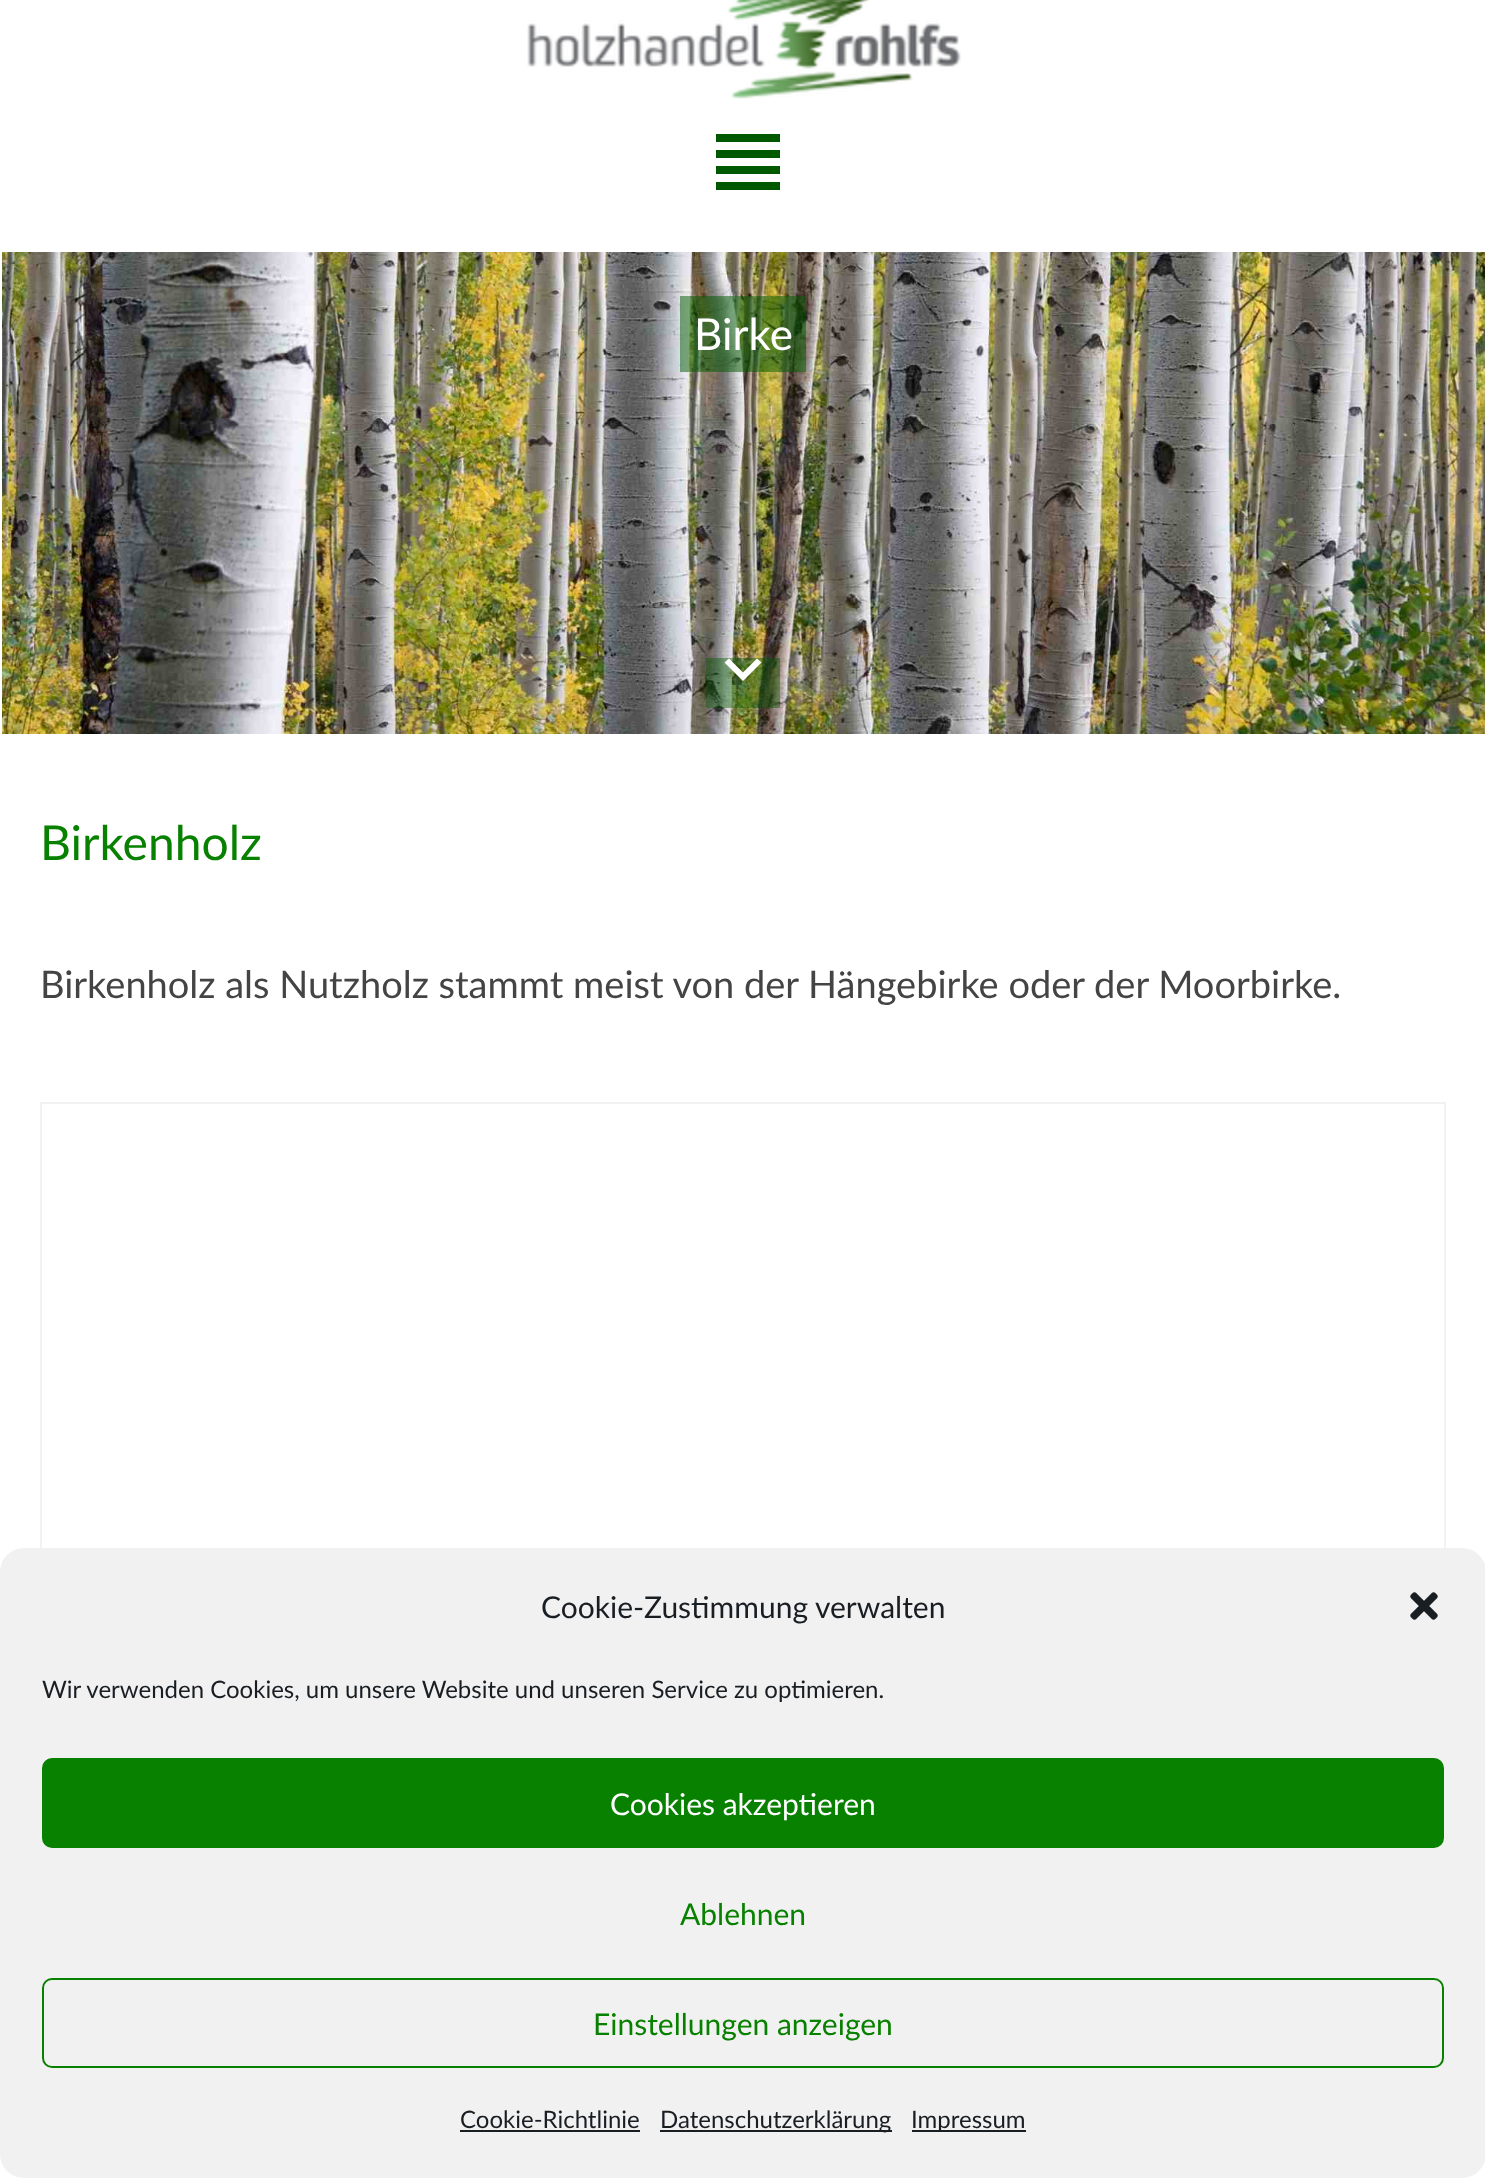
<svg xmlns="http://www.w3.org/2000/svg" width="1485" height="2178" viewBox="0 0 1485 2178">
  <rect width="100%" height="100%" fill="#fff"/>
  <image x="527" y="0" width="434" height="99" href="img/1.png"/>
  <path d="M716 134H780V142H716ZM716 150H780V158H716ZM716 166H780V174H716ZM716 182H780V190H716Z" fill="#005900"/>
  <image x="2" y="252" width="1483" height="482" href="img/2.png"/>
  <path d="M680 296h126v76H680z" fill="#00590080"/>
  <path d="M706 658h74v50H706z" fill="#00590066"/>
  <path d="M729 658.5L743 672.5L757 658.5L761.5 662.5L743 681L724.5 662.5Z" fill="#fff"/>
  <path d="M41 1103h1404v836H41z" fill="none" stroke="#f2f2f2" stroke-width="2"/>
  <rect x="1" y="1549" width="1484" height="628" rx="23" fill="#f1f1f1" stroke="#f1f1f1" stroke-width="2"/>
  <image x="1410" y="1592" width="28" height="28" href="img/3.png"/>
  <rect x="43" y="1759" width="1400" height="88" rx="9" fill="#098100" stroke="#098100" stroke-width="2"/>
  <rect x="43" y="1979" width="1400" height="88" rx="9" fill="none" stroke="#098100" stroke-width="2"/>
  <path d="M460 2130h180v2H460z" fill="#191e23"/>
  <path d="M660 2130h232v2H660z" fill="#191e23"/>
  <path d="M912 2130h114v2H912z" fill="#191e23"/>
  <text x="694" y="350" font-family="Lato" font-size="44" fill="#fff">Birke</text>
  <text x="40" y="860" font-family="Lato" font-size="48" fill="#098100">Birkenholz</text>
  <text x="40" y="998" font-family="Lato" font-size="38" fill="#444">Birkenholz als Nutzholz stammt meist von der Hängebirke oder der Moorbirke.</text>
  <text x="541" y="1618" font-family="Lato" font-size="30" fill="#191e23">Cookie-Zustimmung verwalten</text>
  <text x="42" y="1698" font-family="Lato" font-size="24" fill="#191e23">Wir verwenden Cookies, um unsere Website und unseren Service zu optimieren.</text>
  <text x="610" y="1815" font-family="Lato" font-size="30" fill="#fff">Cookies akzeptieren</text>
  <g font-family="Lato" font-size="30" fill="#098100">
    <text x="680" y="1925">Ablehnen</text>
    <text x="593" y="2035">Einstellungen anzeigen</text>
  </g>
  <g font-family="Lato" font-size="24" fill="#191e23">
    <text x="460" y="2128">Cookie-Richtlinie</text>
    <text x="660" y="2128">Datenschutzerklärung</text>
    <text x="911" y="2128">Impressum</text>
  </g>
</svg>
